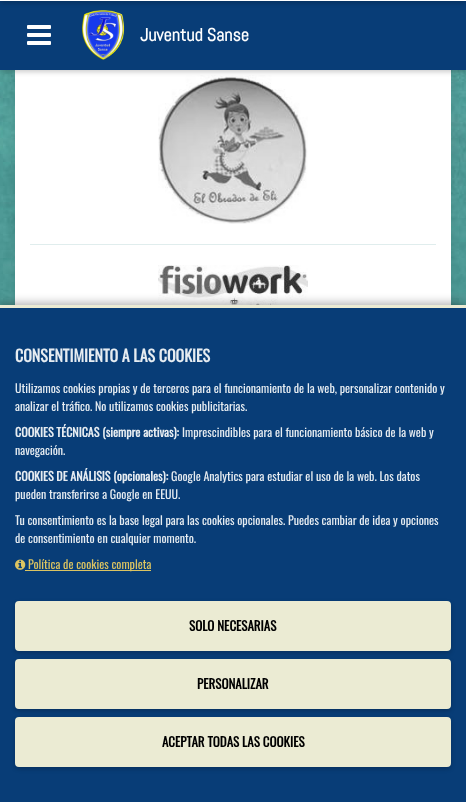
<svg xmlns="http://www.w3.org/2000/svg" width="466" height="802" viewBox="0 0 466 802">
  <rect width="100%" height="100%" fill="#fff"/>
  <image x="0" y="70" width="466" height="235" href="img/1.png"/>
  <rect x="15" y="-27" width="436" height="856" rx="12" fill="#00000014" filter="blur(5px)"/>
  <path d="M15 70h436v235H15z" fill="#fff"/>
  <image x="30" y="70" width="406" height="235" href="img/2.png"/>
  <path d="M0 2h466v70H0z" fill="#00000033" filter="blur(2.5px)"/>
  <path d="M0 1h466v69H0z" fill="#083d77"/>
  <image x="82" y="10" width="43" height="50" href="img/4.png"/>
  <path d="M0 -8h466v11H0z" fill="#00000033" filter="blur(2.5px)"/>
  <path d="M0 0h466v1H0z" fill="#fff"/>
  <image x="27" y="25" width="24" height="20" href="img/3.png"/>
  <path d="M0 303h466v497H0z" fill="#0000004d" filter="blur(5px)"/>
  <path d="M0 308h466v494H0z" fill="#083d77"/>
  <path d="M0 305h466v3H0z" fill="#ebebd3"/>
  <image x="15" y="559" width="11" height="11" href="img/5.png"/>
  <path d="M25 570h126v1H25z" fill="#dcc461"/>
  <rect x="15" y="603" width="436" height="50" rx="4" fill="#00000033" filter="blur(2px)"/>
  <rect x="16" y="602" width="434" height="48" rx="3" fill="#ebebd3" stroke="#ebebd3" stroke-width="2"/>
  <rect x="15" y="661" width="436" height="50" rx="4" fill="#00000033" filter="blur(2px)"/>
  <rect x="16" y="660" width="434" height="48" rx="3" fill="#ebebd3" stroke="#ebebd3" stroke-width="2"/>
  <rect x="15" y="719" width="436" height="50" rx="4" fill="#00000033" filter="blur(2px)"/>
  <rect x="16" y="718" width="434" height="48" rx="3" fill="#ebebd3" stroke="#ebebd3" stroke-width="2"/>
  <text x="140" y="41" font-family="Abel" font-size="18" font-weight="bold" fill="#fff">Juventud Sanse</text>
  <text x="15" y="362" font-family="Oswald" font-size="16" font-weight="bold" fill="#e6ecf1">CONSENTIMIENTO A LAS COOKIES</text>
  <g font-family="Oswald" font-size="12" fill="#e6ecf1">
    <text x="15" y="393">Utilizamos cookies propias y de terceros para el funcionamiento de la web, personalizar contenido y</text>
    <text x="15" y="411">analizar el tráfico. No utilizamos cookies publicitarias.</text>
  </g>
  <text x="15" y="437" font-family="Oswald" font-size="12" font-weight="bold" fill="#e6ecf1">COOKIES TÉCNICAS (siempre activas):</text>
  <g font-family="Oswald" font-size="12" fill="#e6ecf1">
    <text x="182" y="437">Imprescindibles para el funcionamiento básico de la web y</text>
    <text x="15" y="455">navegación.</text>
  </g>
  <text x="15" y="481" font-family="Oswald" font-size="12" font-weight="bold" fill="#e6ecf1">COOKIES DE ANÁLISIS (opcionales):</text>
  <g font-family="Oswald" font-size="12" fill="#e6ecf1">
    <text x="171" y="481">Google Analytics para estudiar el uso de la web. Los datos</text>
    <text x="15" y="499">pueden transferirse a Google en EEUU.</text>
    <text x="15" y="525">Tu consentimiento es la base legal para las cookies opcionales. Puedes cambiar de idea y opciones</text>
    <text x="15" y="543">de consentimiento en cualquier momento.</text>
  </g>
  <text x="28" y="569" font-family="Oswald" font-size="12" fill="#dcc461">Política de cookies completa</text>
  <g font-family="Oswald" font-size="13" font-weight="bold" fill="#000">
    <text x="189" y="631">SOLO NECESARIAS</text>
    <text x="197" y="689">PERSONALIZAR</text>
    <text x="162" y="747">ACEPTAR TODAS LAS COOKIES</text>
  </g>
</svg>
